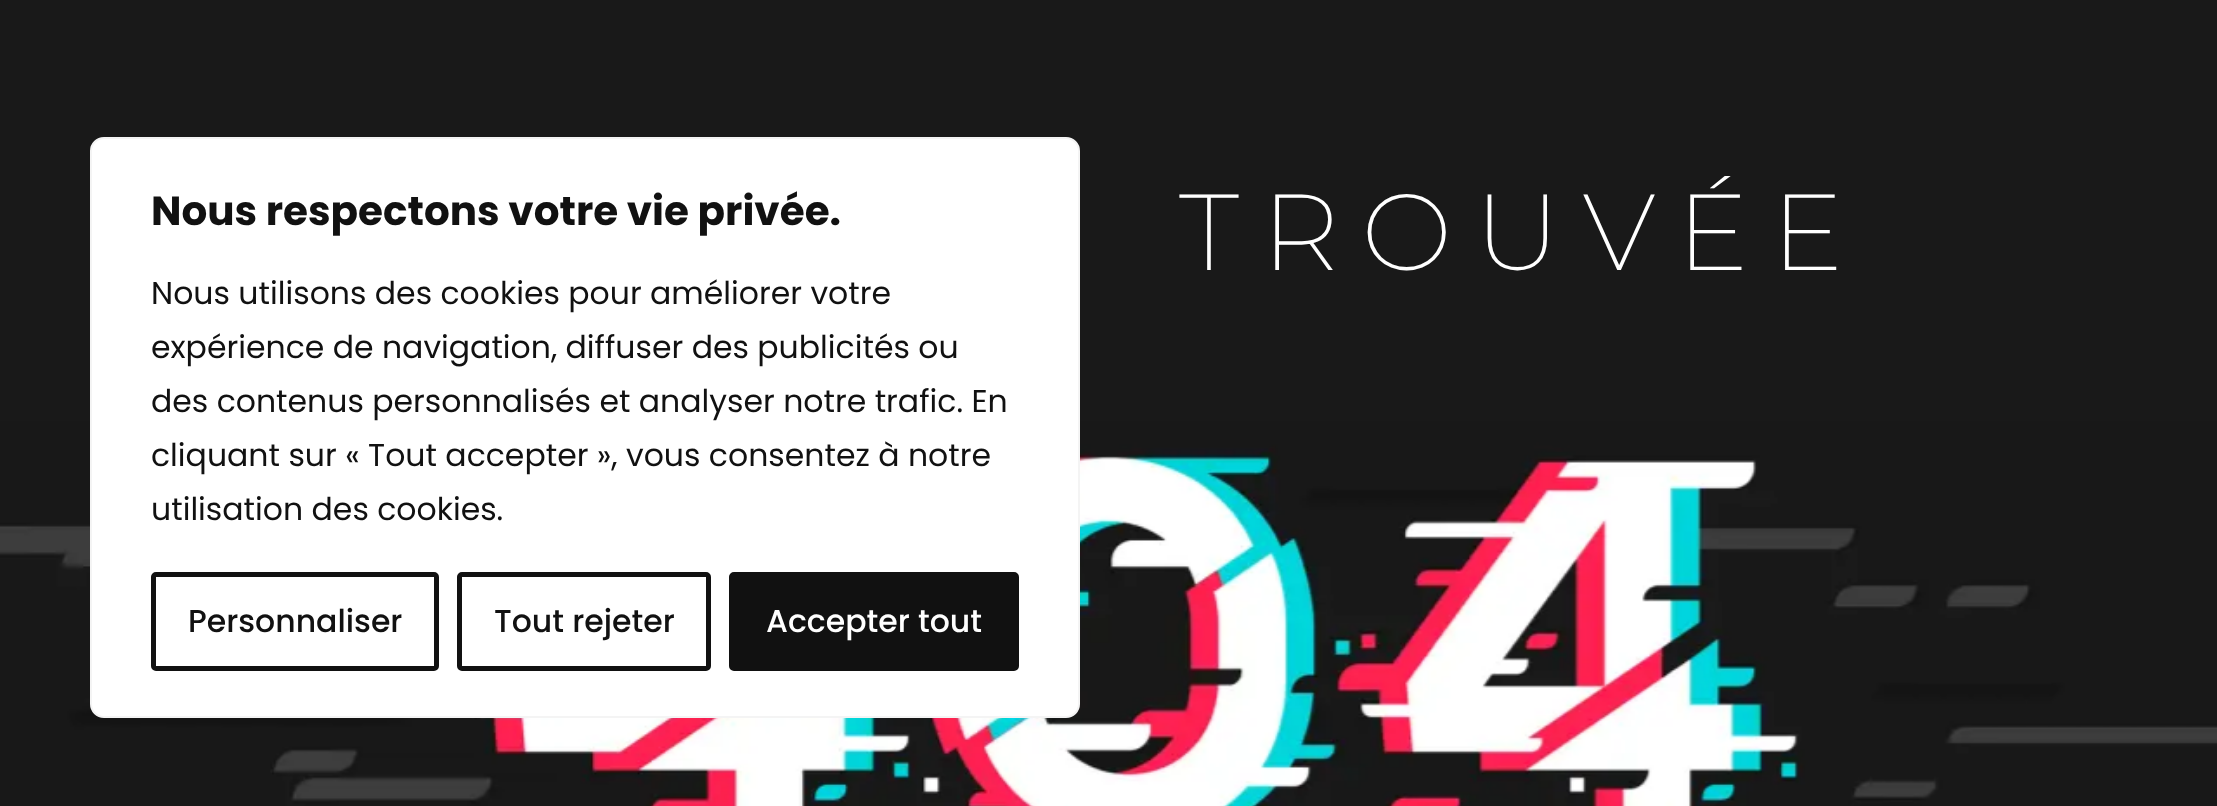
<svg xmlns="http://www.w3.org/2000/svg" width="2217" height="806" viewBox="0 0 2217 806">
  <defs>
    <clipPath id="clip1"><rect x="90" y="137" width="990" height="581" rx="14"/></clipPath>
  </defs>
  <rect width="100%" height="100%" fill="#191919"/>
  <image x="0" y="421" width="2217" height="385" href="img/1.png"/>
  <g clip-path="url(#clip1)">
    <rect x="90" y="135" width="990" height="581" rx="14" fill="#acabab4d" filter="blur(11px)"/>
  </g>
  <rect x="91" y="138" width="988" height="579" rx="13" fill="#fff" stroke="#f4f4f4" stroke-width="2"/>
  <rect x="153.5" y="574.5" width="283" height="94" rx="2.5" fill="none" stroke="#111" stroke-width="5"/>
  <rect x="459.5" y="574.5" width="249" height="94" rx="2.5" fill="none" stroke="#111" stroke-width="5"/>
  <rect x="731.5" y="574.5" width="285" height="94" rx="2.5" fill="#111" stroke="#111" stroke-width="5"/>
  <text x="151" y="225" font-family="Poppins" font-size="40.5" font-weight="bold" fill="#111">Nous respectons votre vie privée.</text>
  <g font-family="Poppins" font-size="31.5" fill="#111">
    <text x="151" y="304">Nous utilisons des cookies pour améliorer votre</text>
    <text x="151" y="358">expérience de navigation, diffuser des publicités ou</text>
    <text x="151" y="412">des contenus personnalisés et analyser notre trafic. En</text>
    <text x="151" y="466">cliquant sur « Tout accepter », vous consentez à notre</text>
    <text x="151" y="520">utilisation des cookies.</text>
  </g>
  <g font-family="Poppins" font-size="31.5" font-weight="500" fill="#111">
    <text x="188" y="632">Personnaliser</text>
    <text x="494" y="632">Tout rejeter</text>
  </g>
  <text x="766" y="632" font-family="Poppins" font-size="31.5" font-weight="500" fill="#fff">Accepter tout</text>
  <text x="1179" y="270" font-family="Montserrat" font-size="108" font-weight="100" letter-spacing="22.5" fill="#fff">TROUVÉE</text>
</svg>
